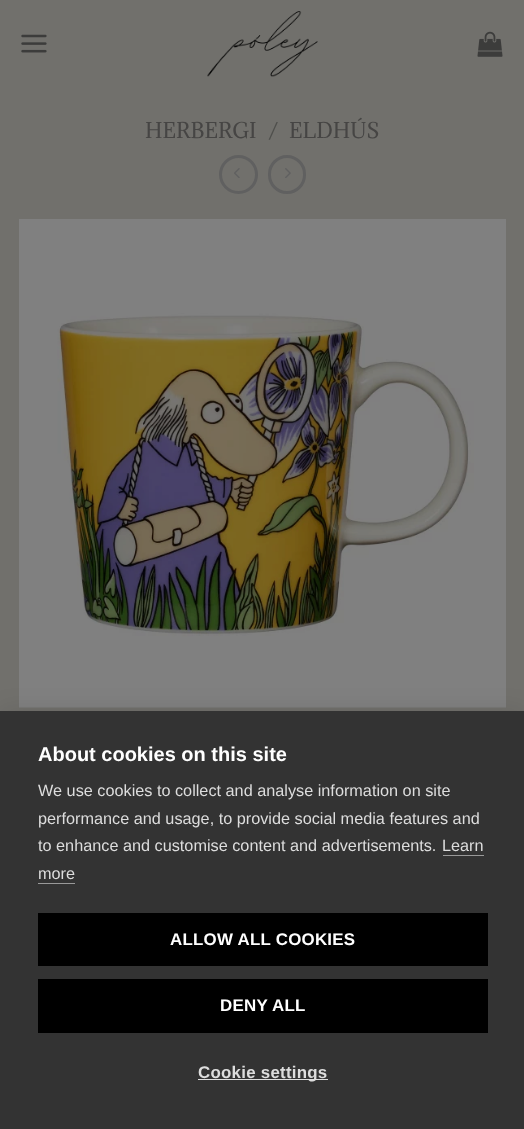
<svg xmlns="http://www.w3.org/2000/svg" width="524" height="1129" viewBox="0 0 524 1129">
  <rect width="100%" height="100%" fill="#71706c"/>
  <image x="21" y="34" width="26" height="19" href="img/1.png"/>
  <image x="207" y="11" width="111" height="66" href="img/2.png"/>
  <image x="477" y="31" width="26" height="26" href="img/3.png"/>
  <circle cx="238.5" cy="174.5" r="18" fill="none" stroke="#606060" stroke-width="3"/>
  <image x="234" y="168" width="6" height="10" href="img/4.png"/>
  <rect x="269.5" y="156.5" width="35" height="36" rx="17.5" fill="none" stroke="#606060" stroke-width="3"/>
  <image x="285" y="168" width="6" height="10" href="img/5.png"/>
  <image x="19" y="219" width="487" height="489" href="img/6.png"/>
  <path d="M0 711h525v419H0z" fill="#0000001a" filter="blur(12.5px)"/>
  <path d="M0 711h524v418H0z" fill="#333"/>
  <path d="M443 855h41v1H443z" fill="#999"/>
  <path d="M38 883h37v1H38z" fill="#999"/>
  <path d="M38 913h450v53H38z" fill="#000"/>
  <path d="M38 979h450v54H38z" fill="#000"/>
  <path d="M198 1079h130v1H198z" fill="#ddd"/>
  <text x="145" y="138" font-family="Adamina" font-size="20" fill="#464544">HERBERGI</text>
  <text x="268" y="138" font-family="Adamina" font-size="20" fill="#4f4f4c">/</text>
  <text x="289" y="138" font-family="Adamina" font-size="20" fill="#464544">ELDHÚS</text>
  <text x="38" y="761" font-family="Liberation Sans" font-size="20" font-weight="bold" fill="#fff">About cookies on this site</text>
  <g font-family="Liberation Sans" font-size="16.25" fill="#ddd">
    <text x="38" y="796">We use cookies to collect and analyse information on site</text>
    <text x="38" y="824">performance and usage, to provide social media features and</text>
    <text x="38" y="851">to enhance and customise content and advertisements.</text>
    <text x="442" y="851">Learn</text>
    <text x="38" y="879">more</text>
  </g>
  <g font-family="Liberation Sans" font-size="16.9" font-weight="bold" letter-spacing="0.25" fill="#fff">
    <text x="170" y="945">ALLOW ALL COOKIES</text>
    <text x="220" y="1011">DENY ALL</text>
  </g>
  <text x="198" y="1078" font-family="Liberation Sans" font-size="16.9" font-weight="bold" letter-spacing="0.25" fill="#ddd">Cookie settings</text>
</svg>
